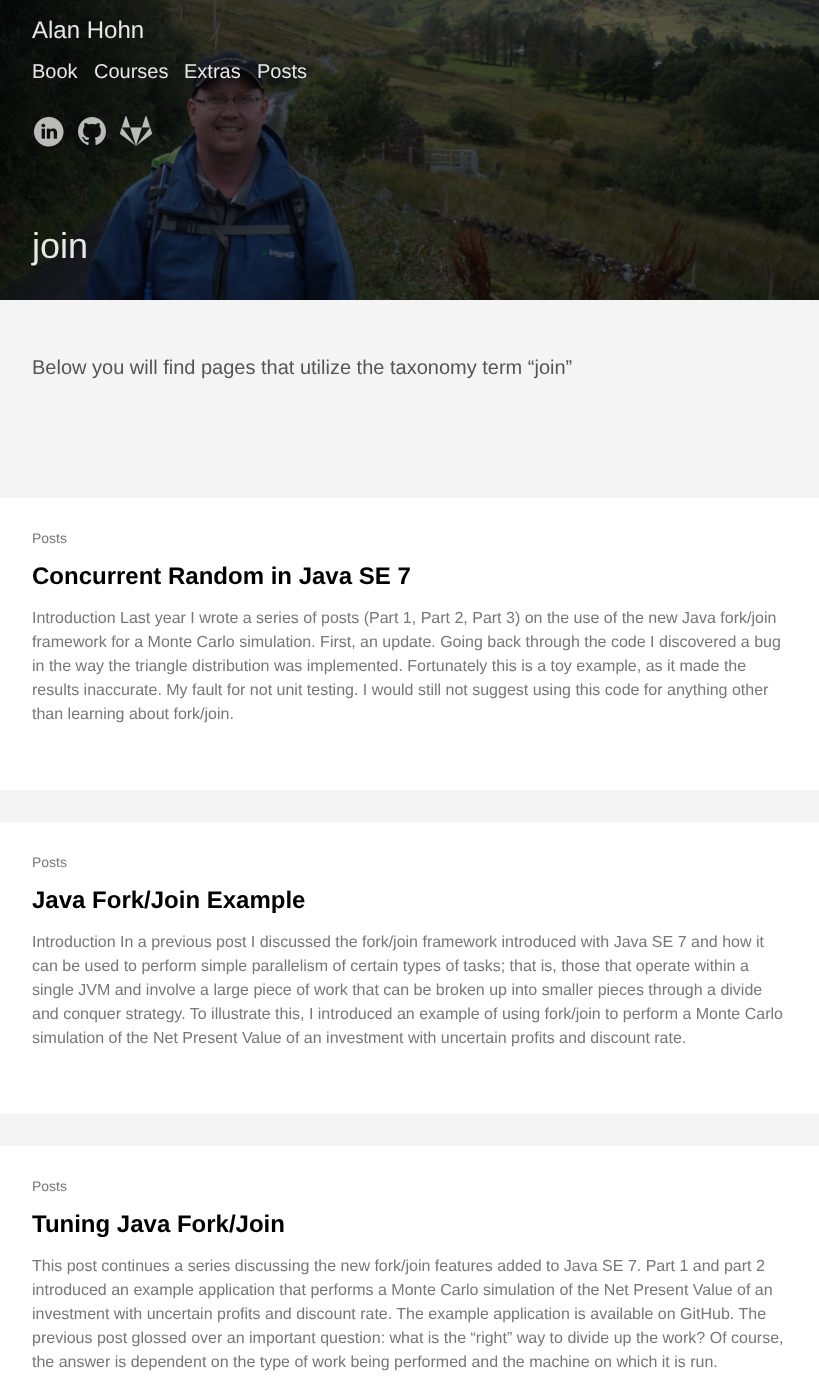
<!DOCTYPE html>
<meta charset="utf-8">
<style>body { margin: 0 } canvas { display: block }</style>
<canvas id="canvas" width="819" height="1389"></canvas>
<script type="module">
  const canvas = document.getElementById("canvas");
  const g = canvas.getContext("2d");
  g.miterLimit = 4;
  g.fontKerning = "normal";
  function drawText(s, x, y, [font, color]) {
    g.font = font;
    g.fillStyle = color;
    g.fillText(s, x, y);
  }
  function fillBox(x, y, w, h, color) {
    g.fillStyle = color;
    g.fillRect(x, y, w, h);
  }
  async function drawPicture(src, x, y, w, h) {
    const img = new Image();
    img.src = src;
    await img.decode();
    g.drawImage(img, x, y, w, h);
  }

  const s1 = ["24px Liberation Sans", "#E7E7E7"];
  const s2 = ["20px Liberation Sans", "#E7E7E7"];
  const s3 = ["36px Liberation Sans", "#E7E7E7"];
  const s4 = ["20px Liberation Sans", "#555555"];
  const s5 = ["14px Liberation Sans", "#777777"];
  const s6 = ["bold 24px Liberation Sans", "#000000"];
  const s7 = ["16px Liberation Sans", "#777777"];

  fillBox(0, 0, 819, 1389, "#F4F4F4");
  await drawPicture("pic1.png", 0, 0, 819, 300);
  drawText("Alan Hohn", 32, 38, s1);
  drawText("Book", 32, 78, s2);
  drawText("Courses", 94, 78, s2);
  drawText("Extras", 184, 78, s2);
  drawText("Posts", 257, 78, s2);
  await drawPicture("pic2.png", 34, 117, 30, 30);
  await drawPicture("pic3.png", 78, 117, 28, 28);
  await drawPicture("pic4.png", 120, 116, 32, 30);
  drawText("join", 32, 258, s3);
  drawText("Below you will find pages that utilize the taxonomy term “join”", 32, 374, s4);
  fillBox(0, 498, 819, 292, "#FFFFFF");
  drawText("Posts", 32, 543, s5);
  drawText("Concurrent Random in Java SE 7", 32, 584, s6);
  drawText("Introduction Last year I wrote a series of posts (Part 1, Part 2, Part 3) on the use of the new Java fork/join", 32, 623, s7);
  drawText("framework for a Monte Carlo simulation. First, an update. Going back through the code I discovered a bug", 32, 647, s7);
  drawText("in the way the triangle distribution was implemented. Fortunately this is a toy example, as it made the", 32, 671, s7);
  drawText("results inaccurate. My fault for not unit testing. I would still not suggest using this code for anything other", 32, 695, s7);
  drawText("than learning about fork/join.", 32, 719, s7);
  fillBox(0, 822, 819, 292, "#FFFFFF");
  drawText("Posts", 32, 867, s5);
  drawText("Java Fork/Join Example", 32, 908, s6);
  drawText("Introduction In a previous post I discussed the fork/join framework introduced with Java SE 7 and how it", 32, 947, s7);
  drawText("can be used to perform simple parallelism of certain types of tasks; that is, those that operate within a", 32, 971, s7);
  drawText("single JVM and involve a large piece of work that can be broken up into smaller pieces through a divide", 32, 995, s7);
  drawText("and conquer strategy. To illustrate this, I introduced an example of using fork/join to perform a Monte Carlo", 32, 1019, s7);
  drawText("simulation of the Net Present Value of an investment with uncertain profits and discount rate.", 32, 1043, s7);
  fillBox(0, 1146, 819, 243, "#FFFFFF");
  drawText("Posts", 32, 1191, s5);
  drawText("Tuning Java Fork/Join", 32, 1232, s6);
  drawText("This post continues a series discussing the new fork/join features added to Java SE 7. Part 1 and part 2", 32, 1271, s7);
  drawText("introduced an example application that performs a Monte Carlo simulation of the Net Present Value of an", 32, 1295, s7);
  drawText("investment with uncertain profits and discount rate. The example application is available on GitHub. The", 32, 1319, s7);
  drawText("previous post glossed over an important question: what is the “right” way to divide up the work? Of course,", 32, 1343, s7);
  drawText("the answer is dependent on the type of work being performed and the machine on which it is run.", 32, 1367, s7);
</script>
